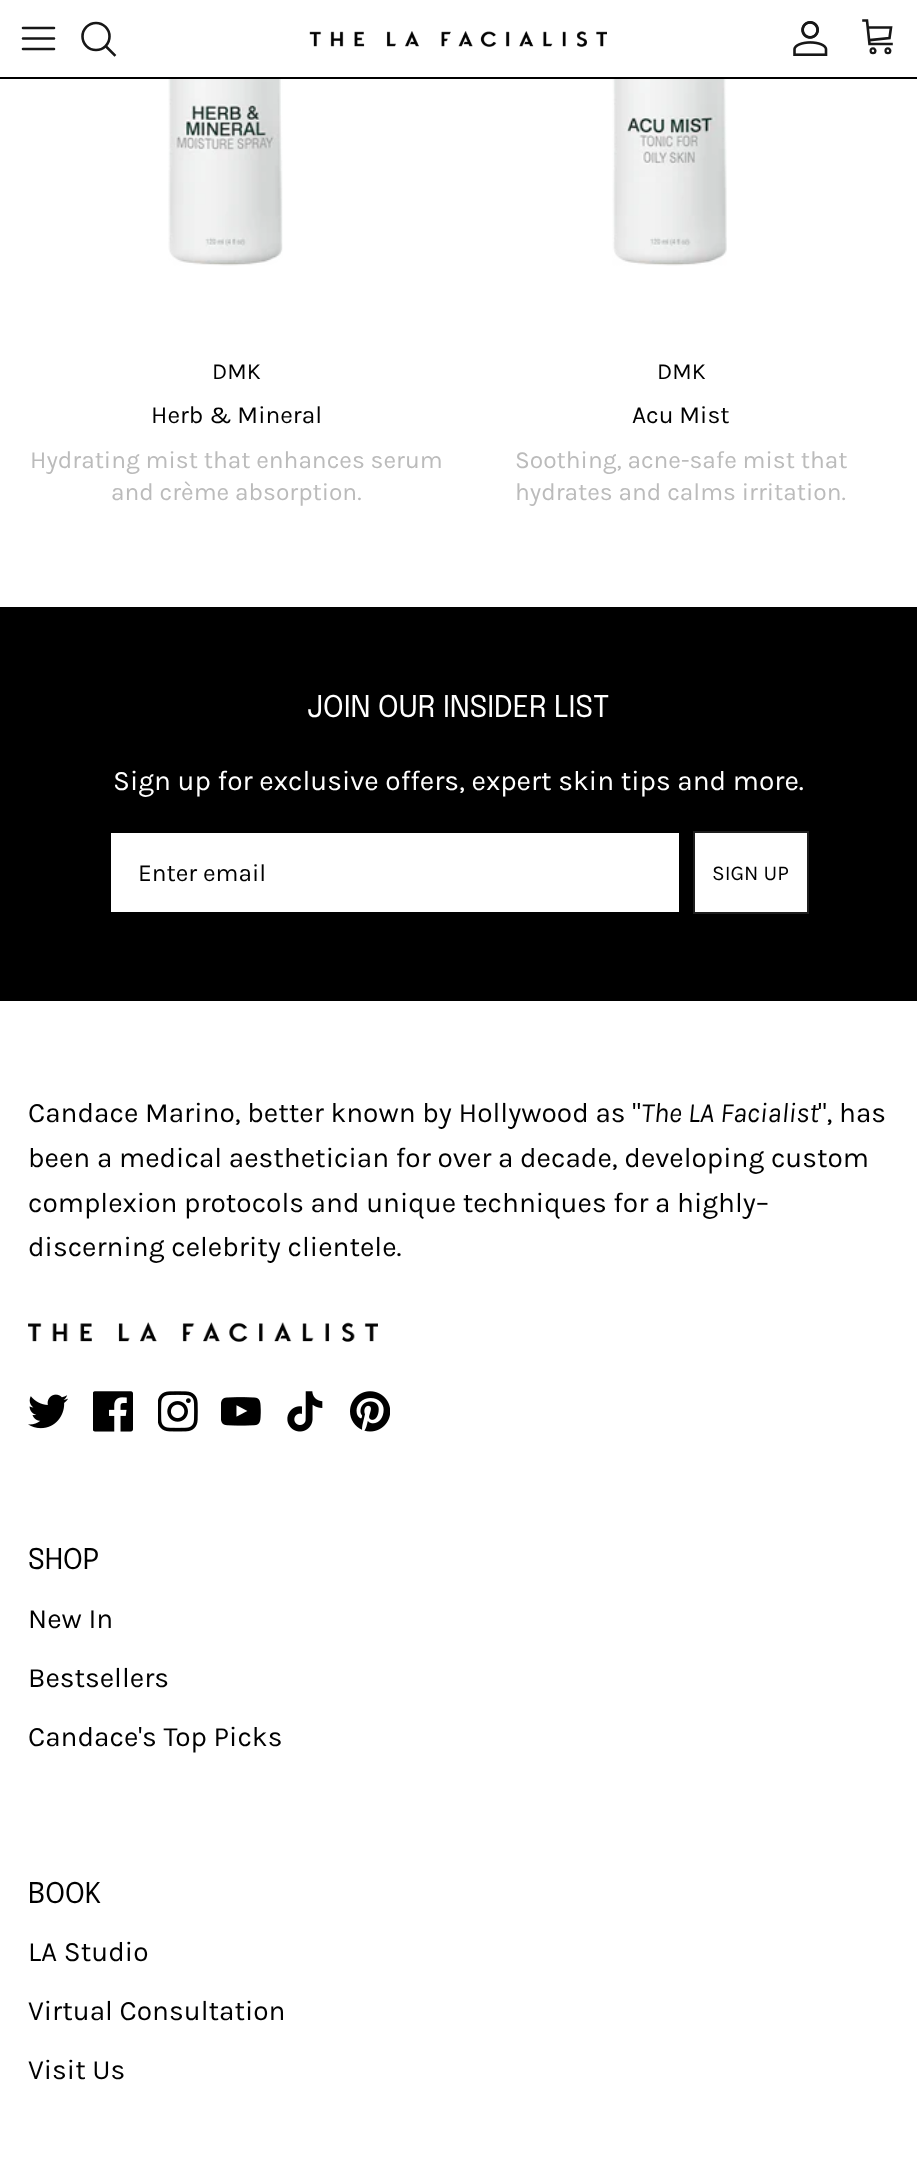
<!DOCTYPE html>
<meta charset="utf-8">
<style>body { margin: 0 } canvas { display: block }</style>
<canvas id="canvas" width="917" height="2158"></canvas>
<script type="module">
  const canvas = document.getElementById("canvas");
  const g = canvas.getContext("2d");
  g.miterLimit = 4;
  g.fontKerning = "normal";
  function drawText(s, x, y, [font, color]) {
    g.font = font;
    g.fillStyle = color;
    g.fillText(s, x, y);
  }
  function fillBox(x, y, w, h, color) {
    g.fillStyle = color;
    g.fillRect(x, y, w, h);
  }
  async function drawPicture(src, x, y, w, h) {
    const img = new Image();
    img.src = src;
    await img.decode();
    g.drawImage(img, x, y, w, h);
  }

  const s1 = ["23px Karla", "#000000"];
  const s2 = ["24.5px Karla", "#000000"];
  const s3 = ["24.5px Karla", "#BBBBBB"];
  const s4 = ["29.75px Epilogue", "#FFFFFF"];
  const s5 = ["28px Karla", "#FFFFFF"];
  const s6 = ["21px Karla", "#000000"];
  const s7 = ["28px Karla", "#000000"];
  const s8 = ["italic 28px Karla", "#000000"];
  const s9 = ["28.5px Epilogue", "#000000"];

  fillBox(0, 0, 917, 2158, "#FFFFFF");
  fillBox(0, 77, 917, 2, "#000000");
  g.beginPath();
  g.moveTo(23, 38.5);
  g.lineTo(54, 38.5);
  g.moveTo(23, 28);
  g.lineTo(54, 28);
  g.moveTo(23, 49);
  g.lineTo(54, 49);
  g.strokeStyle = "#171717";
  g.lineWidth = 2.6;
  g.lineCap = "round";
  g.lineJoin = "round";
  g.stroke();
  g.beginPath();
  g.arc(96, 36.5, 13.5, 0, Math.PI * 2);
  g.stroke();
  g.beginPath();
  g.moveTo(106.5, 47);
  g.lineTo(114.5, 55);
  g.lineCap = "square";
  g.lineJoin = "miter";
  g.stroke();
  await drawPicture("pic1.png", 309, 31, 298, 16);
  await drawPicture("pic2.png", 793, 21, 35, 35);
  g.beginPath();
  g.moveTo(863.5, 20.5);
  g.lineTo(867, 20.5);
  g.lineTo(869.5, 44);
  g.lineTo(891.5, 44);
  g.moveTo(868.5, 27.5);
  g.lineTo(891, 27.5);
  g.lineTo(889.5, 38);
  g.lineTo(871, 40);
  g.stroke();
  g.beginPath();
  g.arc(873, 50.8, 2.4, 0, Math.PI * 2);
  g.lineWidth = 2.2;
  g.stroke();
  g.beginPath();
  g.arc(887.9, 50.8, 2.4, 0, Math.PI * 2);
  g.stroke();
  await drawPicture("pic3.png", 168, 79, 115, 187);
  drawText("DMK", 212, 379, s1);
  drawText("Herb & Mineral", 151, 423, s2);
  drawText("Hydrating mist that enhances serum", 30, 468, s3);
  drawText("and crème absorption.", 111, 500, s3);
  await drawPicture("pic4.png", 612, 79, 115, 187);
  drawText("DMK", 657, 379, s1);
  drawText("Acu Mist", 632, 423, s2);
  drawText("Soothing, acne-safe mist that", 515, 468, s3);
  drawText("hydrates and calms irritation.", 515, 500, s3);
  fillBox(0, 607, 917, 394, "#000000");
  drawText("JOIN OUR INSIDER LIST", 307, 717, s4);
  drawText("Sign up for exclusive offers, expert skin tips and more.", 113, 790, s5);
  fillBox(111, 833, 568, 79, "#FFFFFF");
  drawText("Enter email", 138, 881, s2);
  g.fillStyle = "#FFFFFF";
  g.beginPath();
  g.rect(694, 832, 114, 81);
  g.fill();
  g.strokeStyle = "#1D1D1D";
  g.lineWidth = 2;
  g.stroke();
  drawText("SIGN UP", 712, 880, s6);
  drawText("Candace Marino, better known by Hollywood as \"", 28, 1122, s7);
  drawText("The LA Facialist", 641, 1122, s8);
  drawText("\", has", 818, 1122, s7);
  drawText("been a medical aesthetician for over a decade, developing custom", 28, 1167, s7);
  drawText("complexion protocols and unique techniques for a highly–", 28, 1212, s7);
  drawText("discerning celebrity clientele.", 28, 1256, s7);
  await drawPicture("pic5.png", 28, 1322, 350, 20);
  await drawPicture("pic6.png", 28, 1394, 40, 35);
  await drawPicture("pic7.png", 93, 1391, 40, 41);
  await drawPicture("pic8.png", 158, 1391, 40, 41);
  await drawPicture("pic9.png", 221, 1397, 40, 29);
  await drawPicture("pic10.png", 287, 1391, 36, 41);
  await drawPicture("pic11.png", 350, 1391, 40, 41);
  drawText("SHOP", 28, 1569, s9);
  drawText("New In", 28, 1628, s7);
  drawText("Bestsellers", 28, 1687, s7);
  drawText("Candace's Top Picks", 28, 1746, s7);
  drawText("BOOK", 28, 1903, s9);
  drawText("LA Studio", 28, 1961, s7);
  drawText("Virtual Consultation", 28, 2020, s7);
  drawText("Visit Us", 28, 2079, s7);
</script>
